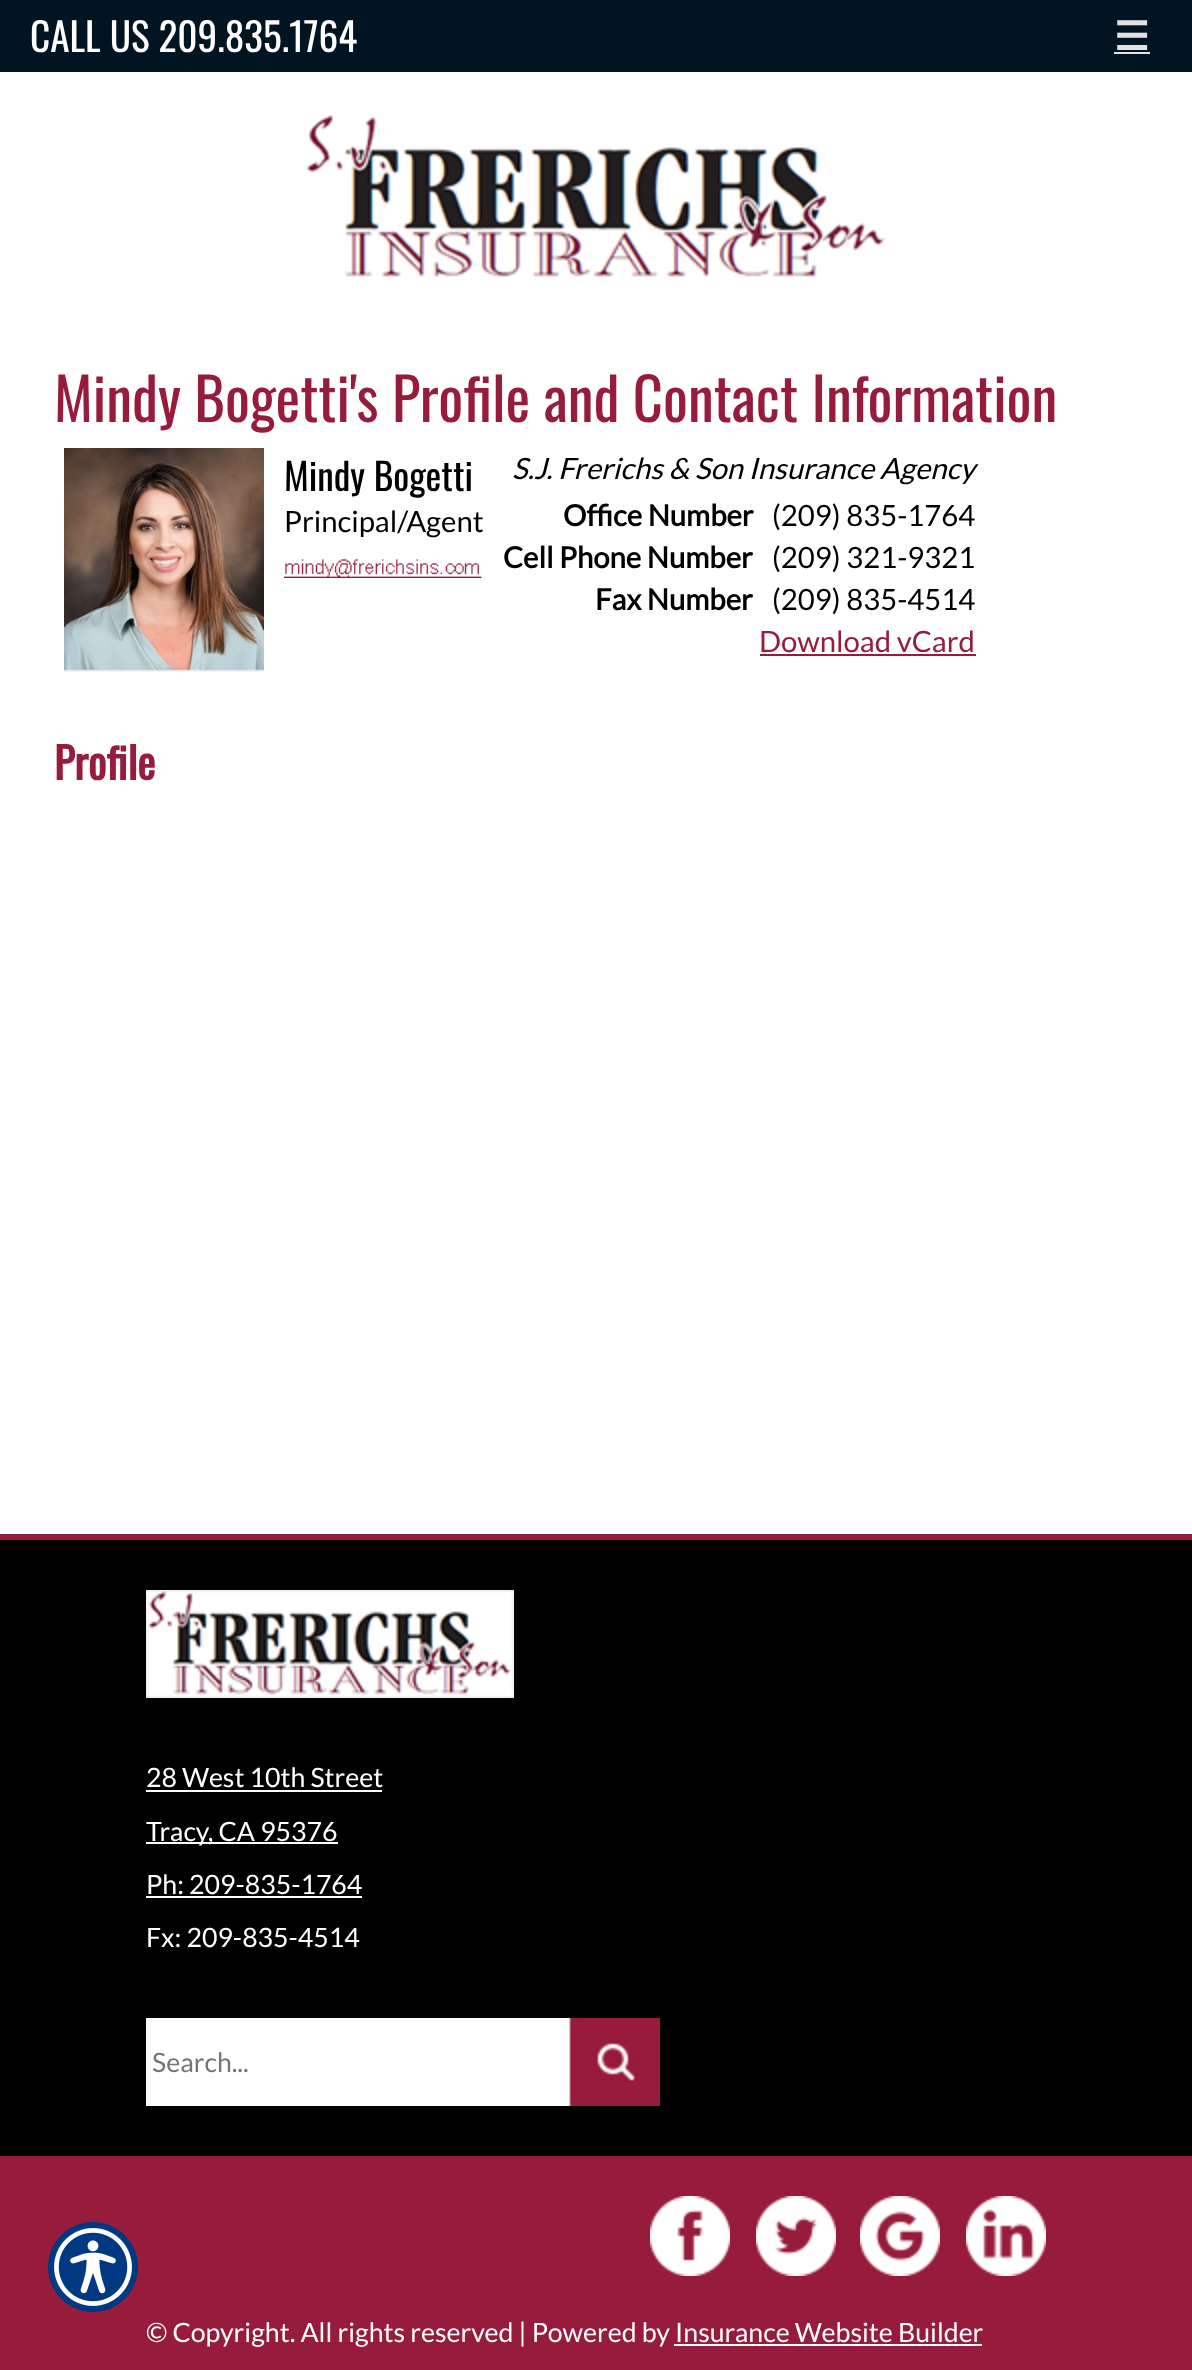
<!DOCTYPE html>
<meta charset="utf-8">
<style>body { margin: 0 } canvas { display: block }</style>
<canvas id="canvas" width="1192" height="2370"></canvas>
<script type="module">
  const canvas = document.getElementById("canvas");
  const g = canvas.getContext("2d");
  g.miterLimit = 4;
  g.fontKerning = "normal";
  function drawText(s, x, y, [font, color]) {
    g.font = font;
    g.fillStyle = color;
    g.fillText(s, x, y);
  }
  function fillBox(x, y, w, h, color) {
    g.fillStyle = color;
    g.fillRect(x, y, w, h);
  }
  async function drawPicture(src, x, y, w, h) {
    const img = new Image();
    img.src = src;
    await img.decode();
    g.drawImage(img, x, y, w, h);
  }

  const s1 = ["39.25px Oswald", "#FFFFFF"];
  const s2 = ["bold 39.25px DejaVu Sans", "#E2E2E2"];
  const s3 = ["58.7px Oswald", "#971B3A"];
  const s4 = ["37.5px Oswald", "#000000"];
  const s5 = ["29.3px Lato", "#000000"];
  const s6 = ["italic 29.3px Lato", "#000000"];
  const s7 = ["bold 29.3px Lato", "#000000"];
  const s8 = ["29.3px Lato", "#971B3A"];
  const s9 = ["bold 43px Oswald", "#971B3A"];
  const s10 = ["26.7px Lato", "#FFFFFF"];
  const s11 = ["26.7px Lato", "#757575"];

  fillBox(0, 0, 1192, 2370, "#FFFFFF");
  fillBox(0, 0, 1192, 72, "#011422");
  drawText("CALL US 209.835.1764", 30, 52, s1);
  drawText("☰", 1114, 50, s2);
  fillBox(1114, 52, 36, 2, "#E2E2E2");
  await drawPicture("pic1.png", 306, 115, 580, 163);
  drawText("Mindy Bogetti's Profile and Contact Information", 54, 422, s3);
  await drawPicture("pic2.png", 64, 448, 200, 224);
  drawText("Mindy Bogetti", 284, 491, s4);
  drawText("Principal/Agent", 284, 532, s5);
  await drawPicture("pic3.png", 284, 559, 198, 19);
  drawText("S.J. Frerichs & Son Insurance Agency", 512, 479, s6);
  drawText("Office Number", 563, 526, s7);
  drawText("(209) 835-1764", 772, 526, s5);
  drawText("Cell Phone Number", 503, 568, s7);
  drawText("(209) 321-9321", 772, 568, s5);
  drawText("Fax Number", 595, 610, s7);
  drawText("(209) 835-4514", 772, 610, s5);
  drawText("Download vCard", 759, 652, s8);
  fillBox(760, 654, 216, 2, "#971B3A");
  drawText("Profile", 54, 780, s9);
  fillBox(0, 1534, 1192, 6, "#971B3A");
  fillBox(0, 1540, 1192, 616, "#000000");
  await drawPicture("pic4.png", 146, 1590, 368, 108);
  drawText("28 West 10th Street", 146, 1787, s10);
  fillBox(146, 1790, 236, 2, "#FFFFFF");
  fillBox(146, 1842, 192, 2, "#FFFFFF");
  drawText("Tracy, CA 95376", 146, 1841, s10);
  drawText("Ph: 209-835-1764", 146, 1894, s10);
  fillBox(146, 1896, 216, 2, "#FFFFFF");
  drawText("Fx: 209-835-4514", 146, 1947, s10);
  await drawPicture("pic5.png", 146, 2018, 514, 88);
  drawText("Search...", 152, 2072, s11);
  fillBox(0, 2156, 1192, 214, "#971B3A");
  await drawPicture("pic6.png", 650, 2196, 80, 80);
  await drawPicture("pic7.png", 756, 2196, 80, 80);
  await drawPicture("pic8.png", 860, 2196, 80, 80);
  await drawPicture("pic9.png", 966, 2196, 80, 80);
  drawText("© Copyright. All rights reserved | Powered by Insurance Website Builder", 146, 2342, s10);
  fillBox(674, 2344, 308, 2, "#FFFFFF");
  await drawPicture("pic10.png", 48, 2222, 90, 90);
</script>
